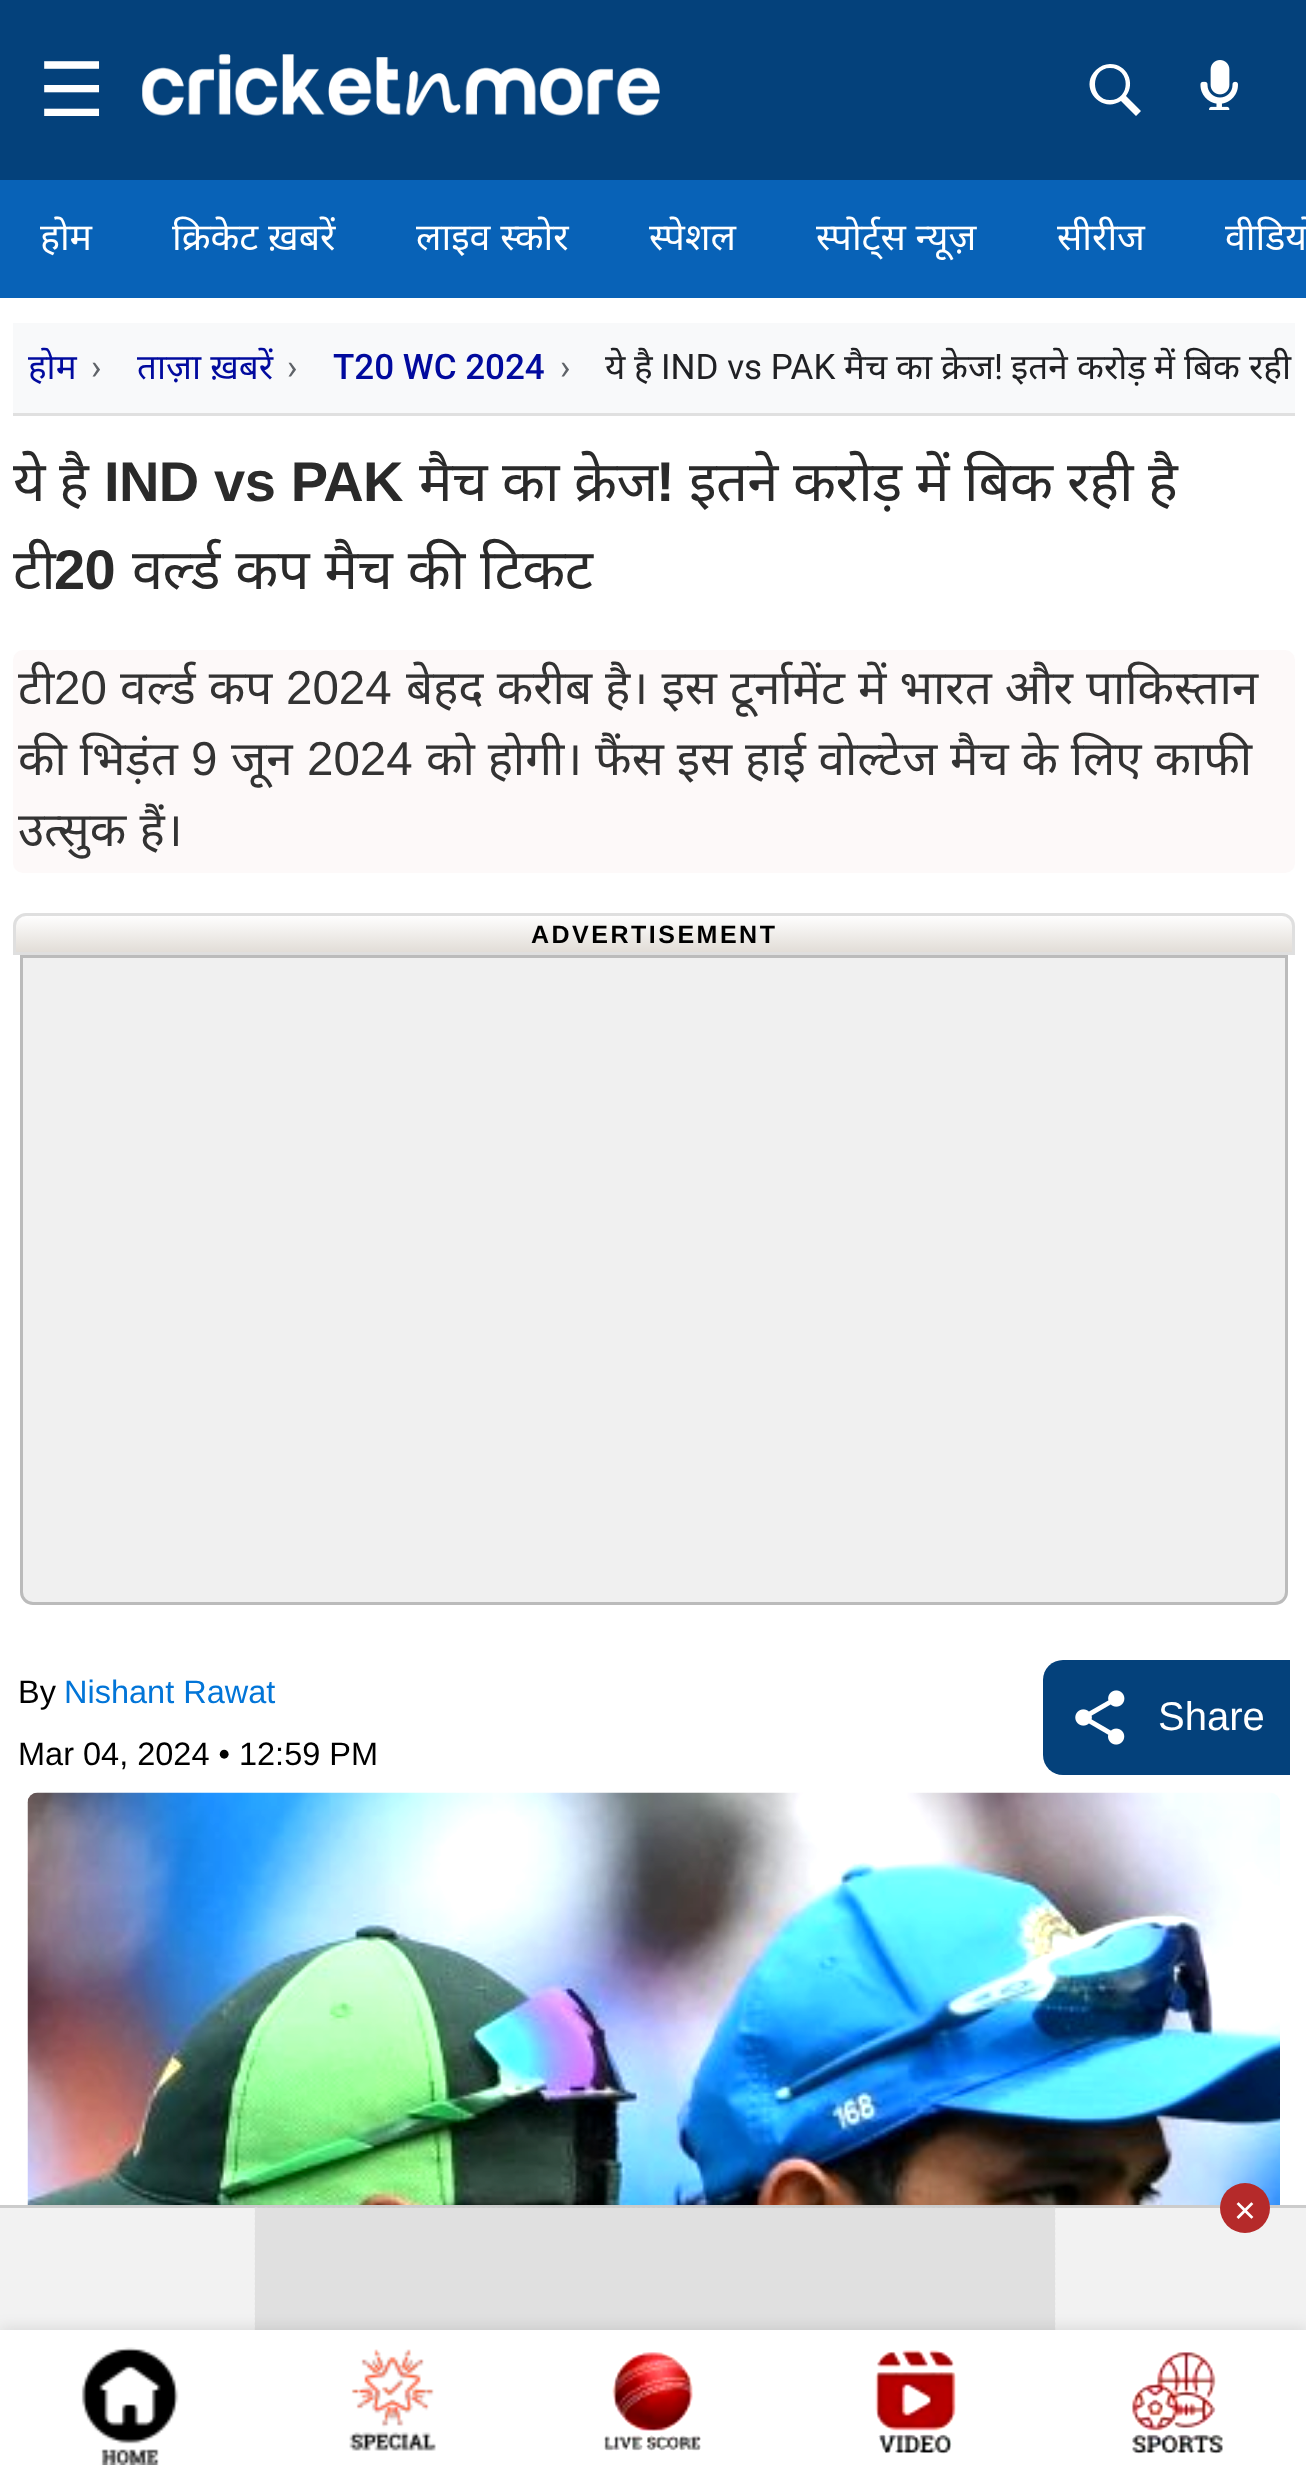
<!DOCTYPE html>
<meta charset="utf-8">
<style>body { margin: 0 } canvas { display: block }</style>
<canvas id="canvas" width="1306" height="2480"></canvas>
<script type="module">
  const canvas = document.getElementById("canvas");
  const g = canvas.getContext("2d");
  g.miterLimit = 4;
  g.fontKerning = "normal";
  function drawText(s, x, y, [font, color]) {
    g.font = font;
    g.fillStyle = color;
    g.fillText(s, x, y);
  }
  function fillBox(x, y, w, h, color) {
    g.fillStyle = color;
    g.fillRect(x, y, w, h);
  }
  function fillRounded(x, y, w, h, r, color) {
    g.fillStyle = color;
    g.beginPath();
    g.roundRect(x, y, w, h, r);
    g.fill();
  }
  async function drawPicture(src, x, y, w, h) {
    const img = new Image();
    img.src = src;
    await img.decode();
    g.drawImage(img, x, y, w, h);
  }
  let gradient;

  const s1 = ["75px DejaVu Sans", "#FFFFFF"];
  const s2 = ["37.5px Noto Sans", "#FFFFFF"];
  const s3 = ["35px Noto Sans", "#010A9E"];
  const s4 = ["35px Roboto", "#5F6368"];
  const s5 = ["500 35px Roboto", "#010A9E"];
  const s6 = ["35px Noto Sans", "#202124"];
  const s7 = ["35px Roboto", "#202124"];
  const s8 = ["56px Noto Sans", "#2A2A2A"];
  const s9 = ["bold 56px Liberation Sans", "#2A2A2A"];
  const s10 = ["47.5px Noto Sans", "#333333"];
  const s11 = ["47.5px Liberation Sans", "#333333"];
  const s12 = ["bold 25px Liberation Sans", "#000000"];
  const s13 = ["32.5px Liberation Sans", "#000000"];
  const s14 = ["32.5px Liberation Sans", "#0275D8"];
  const s15 = ["40px Liberation Sans", "#FFFFFF"];
  const s16 = ["37.5px Liberation Sans", "#FFFFFF"];

  fillBox(0, 0, 1306, 2480, "#FFFFFF");
  fillBox(0, 0, 1306, 180, "#04417B");
  drawText("☰", 38, 116, s1);
  await drawPicture("pic1.png", 142, 54, 518, 62);
  g.beginPath();
  g.moveTo(1110, 64);
  g.bezierCurveTo(1105, 64, 1100, 66, 1096, 70);
  g.bezierCurveTo(1078, 87, 1101, 114, 1121, 101);
  g.lineTo(1136, 116);
  g.lineTo(1141, 111);
  g.lineTo(1126, 96);
  g.bezierCurveTo(1136, 83, 1127, 64, 1110, 64);
  g.closePath();
  g.moveTo(1110, 68);
  g.bezierCurveTo(1131, 68, 1131, 100, 1110, 100);
  g.bezierCurveTo(1090, 100, 1090, 68, 1110, 68);
  g.closePath();
  g.fill();
  await drawPicture("pic2.png", 1200, 60, 38, 50);
  fillBox(0, 180, 1306, 118, "#0862B7");
  drawText("होम", 40, 250, s2);
  drawText("क्रिकेट ख़बरें", 172, 250, s2);
  drawText("लाइव स्कोर", 416, 250, s2);
  drawText("स्पेशल", 649, 250, s2);
  drawText("स्पोर्ट्स न्यूज़", 816, 250, s2);
  drawText("सीरीज", 1057, 250, s2);
  drawText("वीडियो", 1225, 250, s2);
  fillBox(13, 323, 1282, 90, "#F8F9FA");
  fillBox(13, 413, 1282, 3, "#E0E0E0");
  drawText("होम", 28, 379, s3);
  drawText("›", 91, 379, s4);
  drawText("ताज़ा ख़बरें", 137, 379, s3);
  drawText("›", 287, 379, s4);
  drawText("T20 WC 2024", 333, 379, s5);
  drawText("›", 560, 379, s4);
  drawText("ये", 605, 379, s6);
  drawText("है", 634, 379, s6);
  drawText("IND vs PAK", 661, 379, s7);
  drawText("मैच", 844, 379, s6);
  drawText("का", 896, 379, s6);
  drawText("क्रेज", 941, 379, s6);
  drawText("!", 994, 379, s7);
  drawText("इतने", 1011, 379, s6);
  drawText("करोड़", 1077, 379, s6);
  drawText("में", 1154, 379, s6);
  drawText("बिक", 1184, 379, s6);
  drawText("रही", 1249, 379, s6);
  g.save();
  g.beginPath();
  g.roundRect(13, 440, 1282, 1190, [8, 8, 0, 0]);
  g.clip();
  g.letterSpacing = "-0.6px";
  drawText("ये", 13, 501, s8);
  g.restore();
  g.letterSpacing = "-0.6px";
  drawText("है", 59, 501, s8);
  g.wordSpacing = "0.5px";
  drawText("IND vs PAK", 104, 501, s9);
  g.wordSpacing = "0px";
  drawText("मैच", 419, 501, s8);
  drawText("का", 502, 501, s8);
  drawText("क्रेज", 574, 501, s8);
  drawText("!", 656, 501, s9);
  drawText("इतने", 689, 501, s8);
  drawText("करोड़", 793, 501, s8);
  drawText("में", 916, 501, s8);
  drawText("बिक", 964, 501, s8);
  drawText("रही", 1067, 501, s8);
  drawText("है", 1148, 501, s8);
  g.save();
  g.beginPath();
  g.roundRect(13, 440, 1282, 1190, [8, 8, 0, 0]);
  g.clip();
  drawText("टी", 13, 589, s8);
  g.restore();
  drawText("20", 54, 589, s9);
  g.wordSpacing = "1.5px";
  drawText("वर्ल्ड कप मैच की टिकट", 132, 589, s8);
  fillRounded(13, 650, 1282, 223, 10, "#FDF9F9");
  g.save();
  g.beginPath();
  g.rect(18, 655, 1272, 213);
  g.clip();
  g.letterSpacing = "0px";
  g.wordSpacing = "0px";
  drawText("टी", 18, 704, s10);
  g.restore();
  g.letterSpacing = "0px";
  g.wordSpacing = "0px";
  drawText("20", 54, 704, s11);
  g.wordSpacing = "0.75px";
  drawText("वर्ल्ड कप", 120, 704, s10);
  g.wordSpacing = "0px";
  drawText("2024", 286, 704, s11);
  g.wordSpacing = "0.75px";
  drawText("बेहद करीब है। इस टूर्नामेंट में भारत और पाकिस्तान", 406, 704, s10);
  g.save();
  g.beginPath();
  g.rect(18, 655, 1272, 213);
  g.clip();
  g.wordSpacing = "0.5px";
  drawText("की भिड़ंत", 18, 775, s10);
  g.restore();
  g.wordSpacing = "0px";
  drawText("9", 191, 775, s11);
  drawText("जून", 231, 775, s10);
  drawText("2024", 307, 775, s11);
  g.wordSpacing = "0.5px";
  drawText("को होगी। फैंस इस हाई वोल्टेज मैच के लिए काफी", 426, 775, s10);
  g.save();
  g.beginPath();
  g.rect(18, 655, 1272, 213);
  g.clip();
  g.wordSpacing = "1px";
  drawText("उत्सुक हैं।", 18, 846, s10);
  g.restore();
  g.save();
  g.beginPath();
  g.roundRect(13, 913, 1282, 42, [13, 13, 0, 0]);
  g.clip();
  gradient = g.createLinearGradient(654, 915, 654, 953);
  gradient.addColorStop(0, "#FFFFFF");
  gradient.addColorStop(1, "#E1DCD6");
  g.fillStyle = gradient;
  g.fillRect(13, 915, 1282, 37);
  g.restore();
  g.beginPath();
  g.roundRect(14.5, 914.5, 1279, 39, [11.5, 11.5, 0, 0]);
  g.strokeStyle = "#DFDFDF";
  g.lineWidth = 3;
  g.stroke();
  g.letterSpacing = "2.5px";
  g.wordSpacing = "0px";
  drawText("ADVERTISEMENT", 531, 943, s12);
  g.fillStyle = "#F0F0F0";
  g.beginPath();
  g.roundRect(21.5, 956.5, 1265, 647, [0, 0, 11.5, 11.5]);
  g.fill();
  g.strokeStyle = "#BBBBBB";
  g.stroke();
  g.letterSpacing = "0px";
  drawText("By", 18, 1703, s13);
  drawText("Nishant Rawat", 64, 1703, s14);
  drawText("Mar 04, 2024 • 12:59 PM", 18, 1765, s13);
  g.fillStyle = "#04417B";
  g.beginPath();
  g.roundRect(1043, 1660, 247, 115, [20, 0, 0, 20]);
  g.fill();
  await drawPicture("pic3.png", 1075, 1690, 50, 55);
  drawText("Share", 1158, 1730, s15);
  await drawPicture("pic4.png", 27, 1792, 1253, 413);
  fillBox(0, 2208, 1306, 122, "#F2F2F2");
  fillBox(0, 2205, 1306, 3, "#CCCCCC");
  fillBox(255, 2208, 800, 122, "#E0E0E0");
  g.beginPath();
  g.moveTo(255, 2209);
  g.lineTo(1055, 2209);
  g.strokeStyle = "#E0E0E0";
  g.lineWidth = 2.5;
  g.setLineDash([2.5, 2.5]);
  g.stroke();
  g.beginPath();
  g.moveTo(1054, 2207.5);
  g.lineTo(1054, 2332.5);
  g.stroke();
  g.beginPath();
  g.moveTo(256, 2207.5);
  g.lineTo(256, 2332.5);
  g.stroke();
  g.fillStyle = "#B52A2A";
  g.beginPath();
  g.arc(1245, 2208, 25, 0, Math.PI * 2);
  g.fill();
  drawText("×", 1234, 2223, s16);
  g.fillStyle = "rgba(0, 0, 0, 0.1)";
  g.filter = "blur(7.5px)";
  g.beginPath();
  g.rect(0, 2328, 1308, 150);
  g.fill();
  g.filter = "none";
  fillBox(0, 2330, 1306, 150, "#FFFFFF");
  await drawPicture("pic5.png", 81, 2347, 98, 118);
  await drawPicture("pic6.png", 349, 2349, 87, 102);
  await drawPicture("pic7.png", 604, 2352, 97, 99);
  await drawPicture("pic8.png", 875, 2350, 81, 104);
  await drawPicture("pic9.png", 1132, 2352, 91, 102);
</script>
